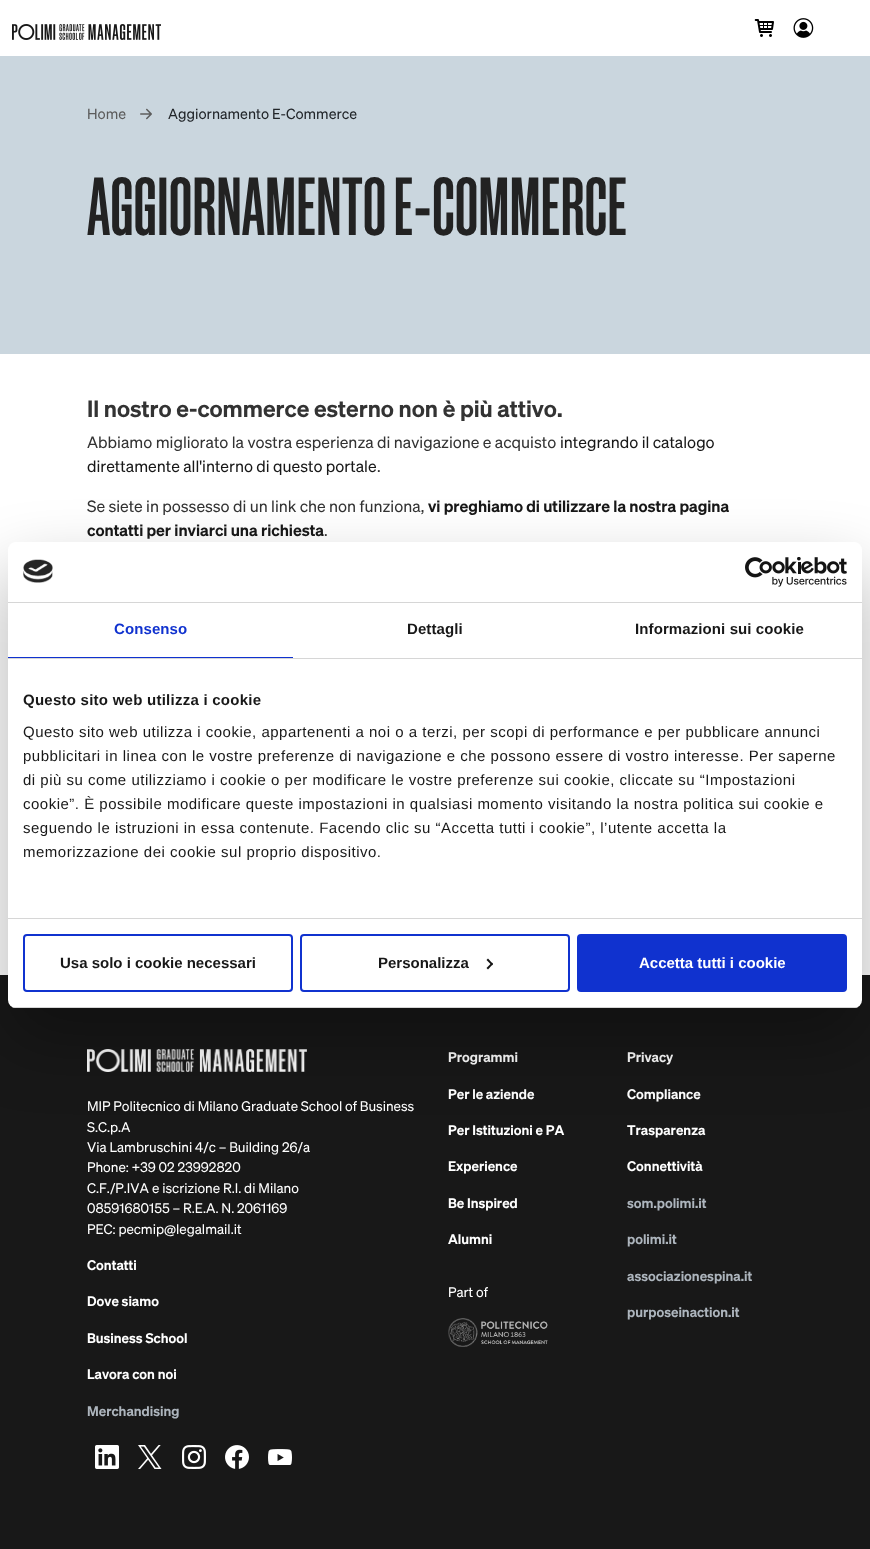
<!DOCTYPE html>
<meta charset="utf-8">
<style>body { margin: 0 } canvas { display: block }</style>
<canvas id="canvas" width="870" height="1549"></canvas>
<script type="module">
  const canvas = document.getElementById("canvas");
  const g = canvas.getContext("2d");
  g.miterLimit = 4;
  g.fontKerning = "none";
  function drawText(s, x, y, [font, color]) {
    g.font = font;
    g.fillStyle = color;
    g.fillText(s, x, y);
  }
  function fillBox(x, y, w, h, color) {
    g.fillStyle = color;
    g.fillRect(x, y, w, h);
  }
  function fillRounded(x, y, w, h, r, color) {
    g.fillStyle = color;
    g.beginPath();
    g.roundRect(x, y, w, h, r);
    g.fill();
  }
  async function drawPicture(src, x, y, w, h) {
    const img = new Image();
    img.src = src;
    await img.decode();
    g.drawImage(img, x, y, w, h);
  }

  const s1 = ["14.4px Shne", "#5C5C5C"];
  const s2 = ["14.4px Shne", "#212529"];
  const s3 = ["500 80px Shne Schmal", "#222222"];
  const s4 = ["600 23px Shne", "#333333"];
  const s5 = ["16px Shne", "#333333"];
  const s6 = ["16px Shne", "#181818"];
  const s7 = ["600 16px Shne", "#181818"];
  const s8 = ["13.6px Shne", "#FFFFFF"];
  const s9 = ["600 13.6px Shne", "#FFFFFF"];
  const s10 = ["600 13.6px Shne", "#ADB5BD"];
  const s11 = ["bold 15px Liberation Sans", "#1032CF"];
  const s12 = ["bold 15px Liberation Sans", "#181818"];
  const s13 = ["15px Liberation Sans", "#181818"];
  const s14 = ["bold 15px Liberation Sans", "#FFFFFF"];

  fillBox(0, 0, 870, 1549, "#FFFFFF");
  await drawPicture("pic1.png", 12, 24, 149, 16);
  await drawPicture("pic2.png", 754, 19, 20, 18);
  await drawPicture("pic3.png", 793, 18, 21, 20);
  fillBox(0, 56, 870, 298, "#CAD6DE");
  drawText("Home", 87, 119, s1);
  await drawPicture("pic4.png", 140, 108, 12, 12);
  drawText("Aggiornamento E-Commerce", 168, 119, s2);
  drawText("AGGIORNAMENTO E-COMMERCE", 87, 235, s3);
  drawText("Il nostro e-commerce esterno non è più attivo.", 87, 417, s4);
  drawText("Abbiamo migliorato la vostra esperienza di navigazione e acquisto", 87, 448, s5);
  drawText("integrando il catalogo", 560, 448, s6);
  drawText("direttamente all'interno di questo portale", 87, 472, s6);
  drawText(".", 377, 472, s5);
  drawText("Se siete in possesso di un link che non funziona,", 87, 512, s5);
  drawText("vi preghiamo di utilizzare la nostra pagina", 428, 512, s7);
  drawText("contatti per inviarci una richiesta", 87, 536, s7);
  drawText(".", 324, 536, s5);
  fillBox(0, 975, 870, 574, "#181818");
  await drawPicture("pic5.png", 87, 1049, 220, 23);
  drawText("MIP Politecnico di Milano Graduate School of Business", 87, 1111, s8);
  drawText("S.C.p.A", 87, 1132, s8);
  drawText("Via Lambruschini 4/c – Building 26/a", 87, 1152, s8);
  drawText("Phone: +39 02 23992820", 87, 1172, s8);
  drawText("C.F./P.IVA", 87, 1193, s8);
  drawText("e iscrizione R.I. di Milano", 152, 1193, s8);
  drawText("08591680155 – R.E.A. N. 2061169", 87, 1213, s8);
  drawText("PEC: pecmip@legalmail.it", 87, 1234, s8);
  drawText("Contatti", 87, 1270, s9);
  drawText("Dove siamo", 87, 1306, s9);
  drawText("Business School", 87, 1343, s9);
  drawText("Lavora con noi", 87, 1379, s9);
  drawText("Merchandising", 87, 1416, s10);
  await drawPicture("pic6.png", 95, 1445, 24, 24);
  await drawPicture("pic7.png", 138, 1445, 24, 24);
  await drawPicture("pic8.png", 182, 1445, 24, 24);
  await drawPicture("pic9.png", 225, 1445, 24, 24);
  await drawPicture("pic10.png", 268, 1449, 24, 16);
  drawText("Programmi", 448, 1062, s9);
  drawText("Per le aziende", 448, 1099, s9);
  drawText("Per Istituzioni e PA", 448, 1135, s9);
  drawText("Experience", 448, 1171, s9);
  drawText("Be Inspired", 448, 1208, s9);
  drawText("Alumni", 448, 1244, s9);
  drawText("Part of", 448, 1297, s8);
  await drawPicture("pic11.png", 448, 1318, 100, 29);
  drawText("Privacy", 627, 1062, s9);
  drawText("Compliance", 627, 1099, s9);
  drawText("Trasparenza", 627, 1135, s9);
  drawText("Connettività", 627, 1171, s9);
  drawText("som.polimi.it", 627, 1208, s10);
  drawText("polimi.it", 627, 1244, s10);
  drawText("associazionespina.it", 627, 1281, s10);
  drawText("purposeinaction.it", 627, 1317, s10);
  g.fillStyle = "rgba(0, 0, 0, 0.3)";
  g.filter = "blur(34px)";
  g.beginPath();
  g.roundRect(8, 574, 854, 466, 8);
  g.fill();
  g.filter = "none";
  fillRounded(8, 542, 854, 466, 8, "#FFFFFF");
  fillBox(8, 602, 854, 1, "#D6D6D6");
  await drawPicture("pic12.png", 23, 559, 30, 24);
  await drawPicture("pic13.png", 745, 557, 102, 30);
  fillBox(8, 658, 854, 1, "#D6D6D6");
  fillBox(8, 657, 285, 1, "#1032CF");
  g.letterSpacing = "0.1px";
  drawText("Consenso", 114, 634, s11);
  drawText("Dettagli", 407, 634, s12);
  drawText("Informazioni sui cookie", 635, 634, s12);
  fillBox(8, 918, 854, 1, "#D6D6D6");
  g.letterSpacing = "0.25px";
  drawText("Questo sito web utilizza i cookie", 23, 705, s12);
  g.letterSpacing = "0.5px";
  drawText("Questo sito web utilizza i cookie, appartenenti a noi o a terzi, per scopi di performance e per pubblicare annunci", 23, 737, s13);
  drawText("pubblicitari in linea con le vostre preferenze di navigazione e che possono essere di vostro interesse. Per saperne", 23, 761, s13);
  drawText("di più su come utilizziamo i cookie o per modificare le vostre preferenze sui cookie, cliccate su “Impostazioni", 23, 785, s13);
  drawText("cookie”. È possibile modificare queste impostazioni in qualsiasi momento visitando la nostra politica sui cookie e", 23, 809, s13);
  drawText("seguendo le istruzioni in essa contenute. Facendo clic su “Accetta tutti i cookie”, l’utente accetta la", 23, 833, s13);
  drawText("memorizzazione dei cookie sul proprio dispositivo.", 23, 857, s13);
  g.save();
  g.beginPath();
  g.roundRect(8, 542, 854, 466, 8);
  g.clip();
  fillBox(8, 1007, 854, 1, "#D6D6D6");
  g.restore();
  g.beginPath();
  g.roundRect(24, 935, 268, 56, 3);
  g.strokeStyle = "#1032CF";
  g.lineWidth = 2;
  g.stroke();
  g.letterSpacing = "0px";
  drawText("Usa solo i cookie necessari", 60, 968, s12);
  g.beginPath();
  g.roundRect(301, 935, 268, 56, 3);
  g.stroke();
  drawText("Personalizza", 378, 968, s12);
  g.fillStyle = "#141414";
  g.beginPath();
  g.moveTo(488, 958.5);
  g.lineTo(493, 964);
  g.lineTo(492, 965.5);
  g.lineTo(486.5, 960);
  g.closePath();
  g.fill();
  g.beginPath();
  g.moveTo(492, 962.5);
  g.lineTo(493, 964);
  g.lineTo(488, 969.5);
  g.lineTo(486.5, 968);
  g.closePath();
  g.fill();
  g.fillStyle = "#1032CF";
  g.beginPath();
  g.roundRect(578, 935, 268, 56, 3);
  g.fill();
  g.stroke();
  drawText("Accetta tutti i cookie", 639, 968, s14);
</script>
